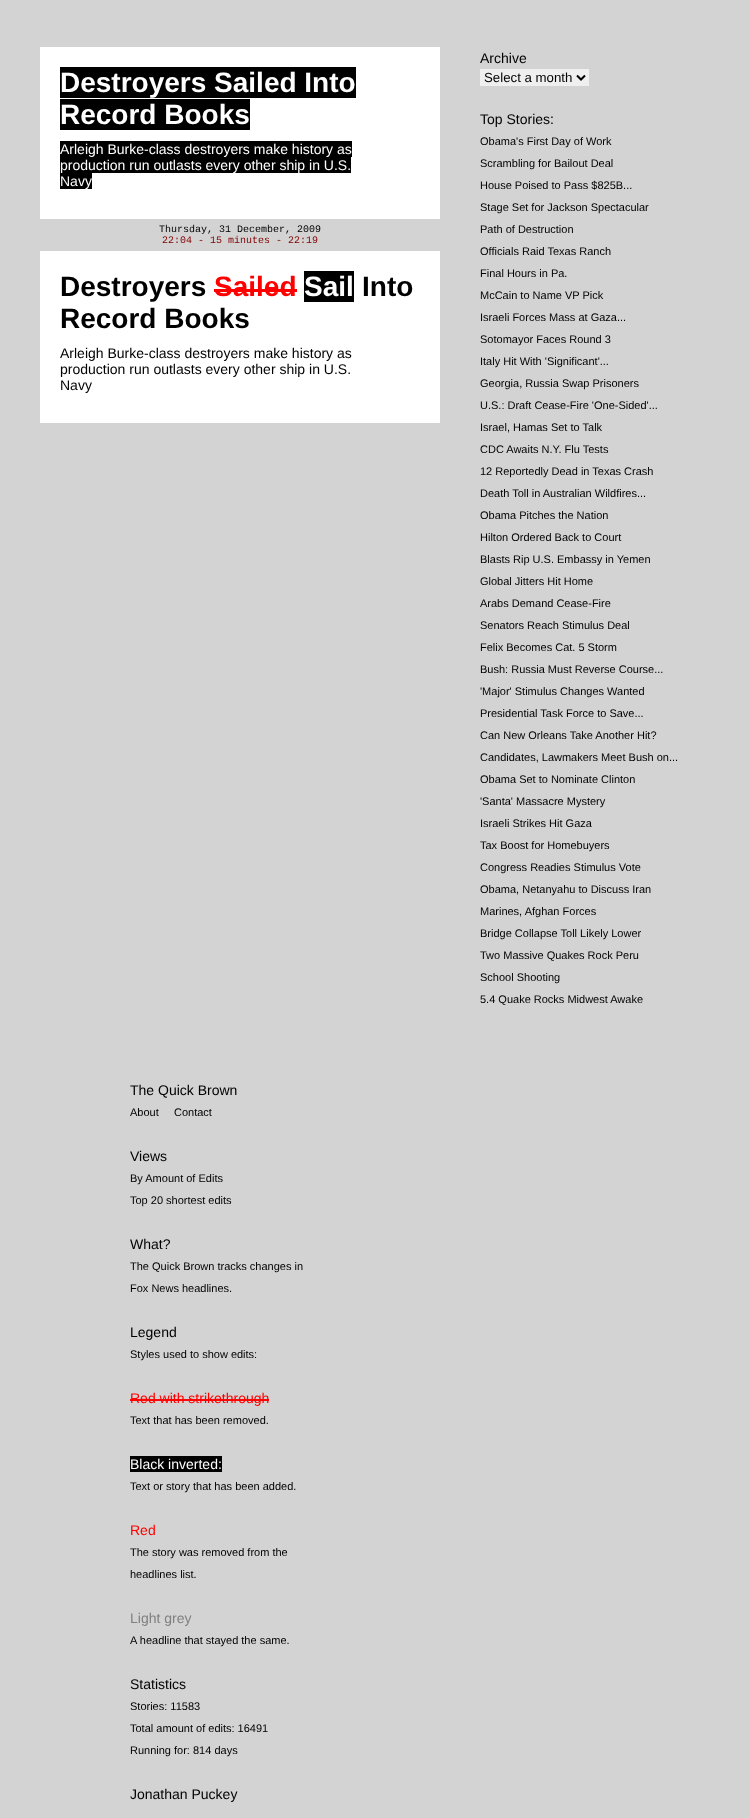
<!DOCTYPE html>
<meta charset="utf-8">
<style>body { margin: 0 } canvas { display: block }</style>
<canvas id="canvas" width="749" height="1818"></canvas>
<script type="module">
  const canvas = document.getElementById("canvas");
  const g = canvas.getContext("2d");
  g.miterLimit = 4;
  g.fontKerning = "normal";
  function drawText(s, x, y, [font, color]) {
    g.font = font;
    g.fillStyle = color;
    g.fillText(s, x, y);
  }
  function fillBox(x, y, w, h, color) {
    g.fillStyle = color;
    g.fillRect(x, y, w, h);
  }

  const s1 = ["bold 28px Liberation Sans", "#FFFFFF"];
  const s2 = ["14px Liberation Sans", "#FFFFFF"];
  const s3 = ["10px Liberation Mono", "#000000"];
  const s4 = ["10px Liberation Mono", "#820000"];
  const s5 = ["bold 28px Liberation Sans", "#000000"];
  const s6 = ["bold 28px Liberation Sans", "#FF0000"];
  const s7 = ["14px Liberation Sans", "#000000"];
  const s8 = ["13.25px Liberation Sans", "#000000"];
  const s9 = ["11px Liberation Sans", "#000000"];
  const s10 = ["14px Liberation Sans", "#FF0000"];
  const s11 = ["14px Liberation Sans", "#808080"];

  fillBox(0, 0, 749, 1818, "#D3D3D3");
  fillBox(40, 47, 400, 172, "#FFFFFF");
  fillBox(60, 67, 296, 31, "#000000");
  drawText("Destroyers Sailed Into", 60, 92, s1);
  fillBox(60, 99, 190, 31, "#000000");
  drawText("Record Books", 60, 124, s1);
  fillBox(60, 141, 292, 16, "#000000");
  drawText("Arleigh Burke-class destroyers make history as", 60, 154, s2);
  fillBox(60, 157, 291, 16, "#000000");
  drawText("production run outlasts every other ship in U.S.", 60, 170, s2);
  fillBox(60, 173, 32, 16, "#000000");
  drawText("Navy", 60, 186, s2);
  drawText("Thursday, 31 December, 2009", 159, 232, s3);
  drawText("22:04 - 15 minutes - 22:19", 162, 243, s4);
  fillBox(40, 251, 400, 172, "#FFFFFF");
  drawText("Destroyers", 60, 296, s5);
  fillBox(214, 289, 83, 3, "#FF0000");
  drawText("Sailed", 214, 296, s6);
  fillBox(304, 271, 50, 31, "#000000");
  drawText("Sail", 304, 296, s1);
  drawText("Into", 362, 296, s5);
  drawText("Record Books", 60, 328, s5);
  drawText("Arleigh Burke-class destroyers make history as", 60, 358, s7);
  drawText("production run outlasts every other ship in U.S.", 60, 374, s7);
  drawText("Navy", 60, 390, s7);
  drawText("Archive", 480, 63, s7);
  fillBox(480, 69, 109, 17, "#EFEFEF");
  g.beginPath();
  g.moveTo(577, 75.5);
  g.lineTo(581, 79.5);
  g.lineTo(585, 75.5);
  g.strokeStyle = "#000000";
  g.lineWidth = 2;
  g.stroke();
  drawText("Select a month", 484, 82, s8);
  drawText("Top Stories:", 480, 124, s7);
  drawText("Obama's First Day of Work", 480, 145, s9);
  drawText("Scrambling for Bailout Deal", 480, 167, s9);
  drawText("House Poised to Pass $825B...", 480, 189, s9);
  drawText("Stage Set for Jackson Spectacular", 480, 211, s9);
  drawText("Path of Destruction", 480, 233, s9);
  drawText("Officials Raid Texas Ranch", 480, 255, s9);
  drawText("Final Hours in Pa.", 480, 277, s9);
  drawText("McCain to Name VP Pick", 480, 299, s9);
  drawText("Israeli Forces Mass at Gaza...", 480, 321, s9);
  drawText("Sotomayor Faces Round 3", 480, 343, s9);
  drawText("Italy Hit With 'Significant'...", 480, 365, s9);
  drawText("Georgia, Russia Swap Prisoners", 480, 387, s9);
  drawText("U.S.: Draft Cease-Fire 'One-Sided'...", 480, 409, s9);
  drawText("Israel, Hamas Set to Talk", 480, 431, s9);
  drawText("CDC Awaits N.Y. Flu Tests", 480, 453, s9);
  drawText("12 Reportedly Dead in Texas Crash", 480, 475, s9);
  drawText("Death Toll in Australian Wildfires...", 480, 497, s9);
  drawText("Obama Pitches the Nation", 480, 519, s9);
  drawText("Hilton Ordered Back to Court", 480, 541, s9);
  drawText("Blasts Rip U.S. Embassy in Yemen", 480, 563, s9);
  drawText("Global Jitters Hit Home", 480, 585, s9);
  drawText("Arabs Demand Cease-Fire", 480, 607, s9);
  drawText("Senators Reach Stimulus Deal", 480, 629, s9);
  drawText("Felix Becomes Cat. 5 Storm", 480, 651, s9);
  drawText("Bush: Russia Must Reverse Course...", 480, 673, s9);
  drawText("'Major' Stimulus Changes Wanted", 480, 695, s9);
  drawText("Presidential Task Force to Save...", 480, 717, s9);
  drawText("Can New Orleans Take Another Hit?", 480, 739, s9);
  drawText("Candidates, Lawmakers Meet Bush on...", 480, 761, s9);
  drawText("Obama Set to Nominate Clinton", 480, 783, s9);
  drawText("'Santa' Massacre Mystery", 480, 805, s9);
  drawText("Israeli Strikes Hit Gaza", 480, 827, s9);
  drawText("Tax Boost for Homebuyers", 480, 849, s9);
  drawText("Congress Readies Stimulus Vote", 480, 871, s9);
  drawText("Obama, Netanyahu to Discuss Iran", 480, 893, s9);
  drawText("Marines, Afghan Forces", 480, 915, s9);
  drawText("Bridge Collapse Toll Likely Lower", 480, 937, s9);
  drawText("Two Massive Quakes Rock Peru", 480, 959, s9);
  drawText("School Shooting", 480, 981, s9);
  drawText("5.4 Quake Rocks Midwest Awake", 480, 1003, s9);
  drawText("The Quick Brown", 130, 1095, s7);
  drawText("About", 130, 1116, s9);
  drawText("Contact", 174, 1116, s9);
  drawText("Views", 130, 1161, s7);
  drawText("By Amount of Edits", 130, 1182, s9);
  drawText("Top 20 shortest edits", 130, 1204, s9);
  drawText("What?", 130, 1249, s7);
  drawText("The Quick Brown tracks changes in", 130, 1270, s9);
  drawText("Fox News headlines.", 130, 1292, s9);
  drawText("Legend", 130, 1337, s7);
  drawText("Styles used to show edits:", 130, 1358, s9);
  fillBox(130, 1399, 139, 2, "#FF0808");
  drawText("Red with strikethrough", 130, 1403, s10);
  drawText("Text that has been removed.", 130, 1424, s9);
  fillBox(130, 1456, 92, 16, "#000000");
  drawText("Black inverted:", 130, 1469, s2);
  drawText("Text or story that has been added.", 130, 1490, s9);
  drawText("Red", 130, 1535, s10);
  drawText("The story was removed from the", 130, 1556, s9);
  drawText("headlines list.", 130, 1578, s9);
  drawText("Light grey", 130, 1623, s11);
  drawText("A headline that stayed the same.", 130, 1644, s9);
  drawText("Statistics", 130, 1689, s7);
  drawText("Stories: 11583", 130, 1710, s9);
  drawText("Total amount of edits: 16491", 130, 1732, s9);
  drawText("Running for: 814 days", 130, 1754, s9);
  drawText("Jonathan Puckey", 130, 1799, s7);
</script>
